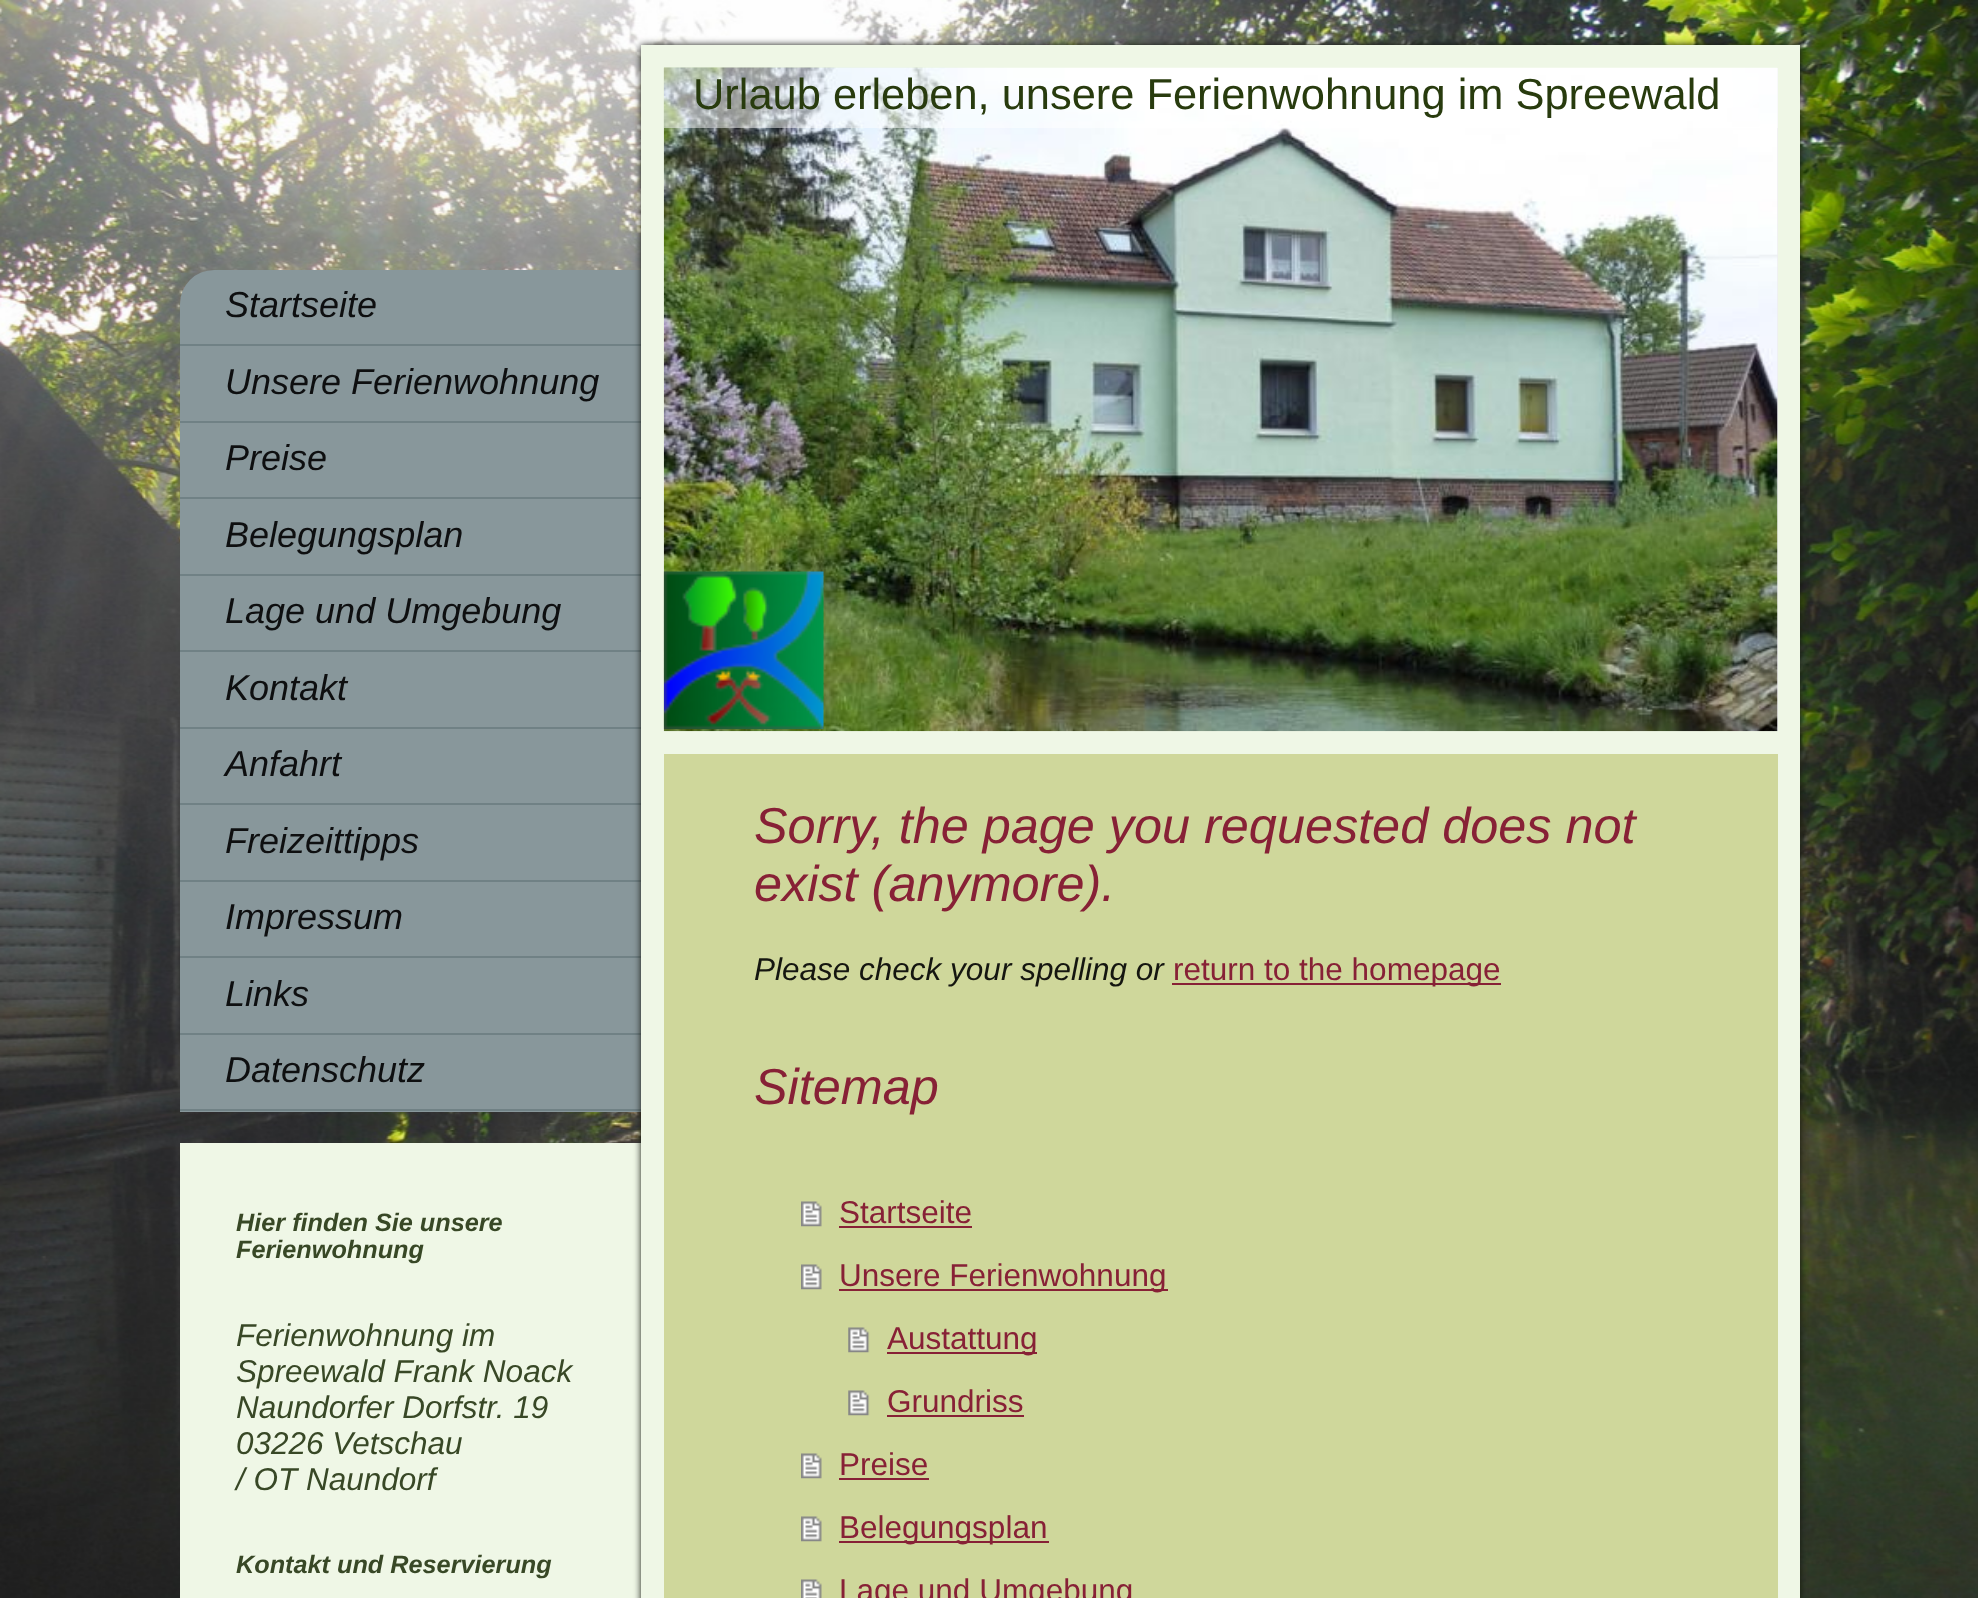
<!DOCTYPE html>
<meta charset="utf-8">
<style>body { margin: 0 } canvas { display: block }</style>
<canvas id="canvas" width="1978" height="1598"></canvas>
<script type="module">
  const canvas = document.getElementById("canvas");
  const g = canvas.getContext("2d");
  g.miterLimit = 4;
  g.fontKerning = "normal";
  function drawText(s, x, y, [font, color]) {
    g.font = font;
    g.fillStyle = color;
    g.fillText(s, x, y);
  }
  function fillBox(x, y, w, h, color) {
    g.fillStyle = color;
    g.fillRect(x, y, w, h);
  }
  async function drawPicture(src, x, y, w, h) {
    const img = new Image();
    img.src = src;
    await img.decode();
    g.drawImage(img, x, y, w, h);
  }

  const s1 = ["italic 36px Liberation Sans", "#0E0F10"];
  const s2 = ["italic bold 25.25px Liberation Sans", "#384826"];
  const s3 = ["italic 31.5px Liberation Sans", "#384826"];
  const s4 = ["43.4px Liberation Sans", "#283B0E"];
  const s5 = ["italic 50.4px Liberation Sans", "#872136"];
  const s6 = ["italic 31.5px Liberation Sans", "#151610"];
  const s7 = ["31.5px Liberation Sans", "#872136"];

  fillBox(0, 0, 1978, 1598, "#FFFFFF");
  await drawPicture("pic1.png", 0, 0, 1978, 1598);
  g.fillStyle = "#88979B";
  g.beginPath();
  g.roundRect(180, 270, 461, 842, [34, 0, 0, 0]);
  g.fill();
  fillBox(180, 344, 461, 2, "#708185");
  drawText("Startseite", 225, 317, s1);
  fillBox(180, 421, 461, 2, "#708185");
  drawText("Unsere Ferienwohnung", 225, 394, s1);
  fillBox(180, 497, 461, 2, "#708185");
  drawText("Preise", 225, 470, s1);
  fillBox(180, 574, 461, 2, "#708185");
  drawText("Belegungsplan", 225, 547, s1);
  fillBox(180, 650, 461, 2, "#708185");
  drawText("Lage und Umgebung", 225, 623, s1);
  fillBox(180, 727, 461, 2, "#708185");
  drawText("Kontakt", 225, 700, s1);
  fillBox(180, 803, 461, 2, "#708185");
  drawText("Anfahrt", 225, 776, s1);
  fillBox(180, 880, 461, 2, "#708185");
  drawText("Freizeittipps", 225, 853, s1);
  fillBox(180, 956, 461, 2, "#708185");
  drawText("Impressum", 225, 929, s1);
  fillBox(180, 1033, 461, 2, "#708185");
  drawText("Links", 225, 1006, s1);
  fillBox(180, 1109, 461, 2, "#708185");
  drawText("Datenschutz", 225, 1082, s1);
  fillBox(180, 1143, 461, 455, "#EFF7E6");
  drawText("Hier finden Sie unsere", 236, 1231, s2);
  drawText("Ferienwohnung", 236, 1258, s2);
  drawText("Ferienwohnung im", 236, 1346, s3);
  drawText("Spreewald Frank Noack", 236, 1382, s3);
  drawText("Naundorfer Dorfstr. 19", 236, 1418, s3);
  drawText("03226 Vetschau", 236, 1454, s3);
  drawText("/ OT Naundorf", 236, 1490, s3);
  drawText("Kontakt und Reservierung", 236, 1573, s2);
  g.fillStyle = "#151610";
  g.filter = "blur(3.5px)";
  g.beginPath();
  g.rect(641, 45, 1159, 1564);
  g.fill();
  g.filter = "none";
  fillBox(664, 754, 1114, 844, "#CFD79B");
  g.strokeStyle = "#EFF7E6";
  g.lineWidth = 23;
  g.strokeRect(652.5, 56.5, 1136, 686);
  fillBox(1777, 68, 1, 663, "#EEEEEE");
  await drawPicture("pic2.png", 663, 67, 1115, 665);
  fillBox(664, 68, 1114, 60, "rgba(255, 255, 255, 0.5)");
  drawText("Urlaub erleben, unsere Ferienwohnung im Spreewald", 693, 109, s4);
  await drawPicture("pic3.png", 663, 571, 161, 158);
  fillBox(1778, 754, 22, 844, "#EFF7E6");
  fillBox(641, 754, 23, 844, "#EFF7E6");
  drawText("Sorry, the page you requested does not", 754, 843, s5);
  drawText("exist (anymore).", 754, 901, s5);
  drawText("Please check your spelling or", 754, 980, s6);
  fillBox(1172, 983, 329, 2, "#872136");
  drawText("return to the homepage", 1173, 980, s7);
  drawText("Sitemap", 754, 1104, s5);
  await drawPicture("pic4.png", 801, 1201, 21, 26);
  drawText("Startseite", 839, 1223, s7);
  fillBox(839, 1226, 133, 2, "#872136");
  await drawPicture("pic4.png", 801, 1264, 21, 26);
  fillBox(839, 1289, 329, 2, "#872136");
  drawText("Unsere Ferienwohnung", 839, 1286, s7);
  await drawPicture("pic5.png", 848, 1327, 22, 26);
  fillBox(887, 1352, 150, 2, "#872136");
  drawText("Austattung", 887, 1349, s7);
  await drawPicture("pic5.png", 848, 1390, 22, 26);
  drawText("Grundriss", 887, 1412, s7);
  fillBox(887, 1415, 137, 2, "#872136");
  await drawPicture("pic4.png", 801, 1453, 21, 26);
  drawText("Preise", 839, 1475, s7);
  fillBox(839, 1478, 90, 2, "#872136");
  await drawPicture("pic4.png", 801, 1516, 21, 26);
  fillBox(839, 1541, 210, 2, "#872136");
  drawText("Belegungsplan", 839, 1538, s7);
  await drawPicture("pic6.png", 801, 1579, 21, 19);
  drawText("Lage und Umgebung", 839, 1601, s7);
</script>
